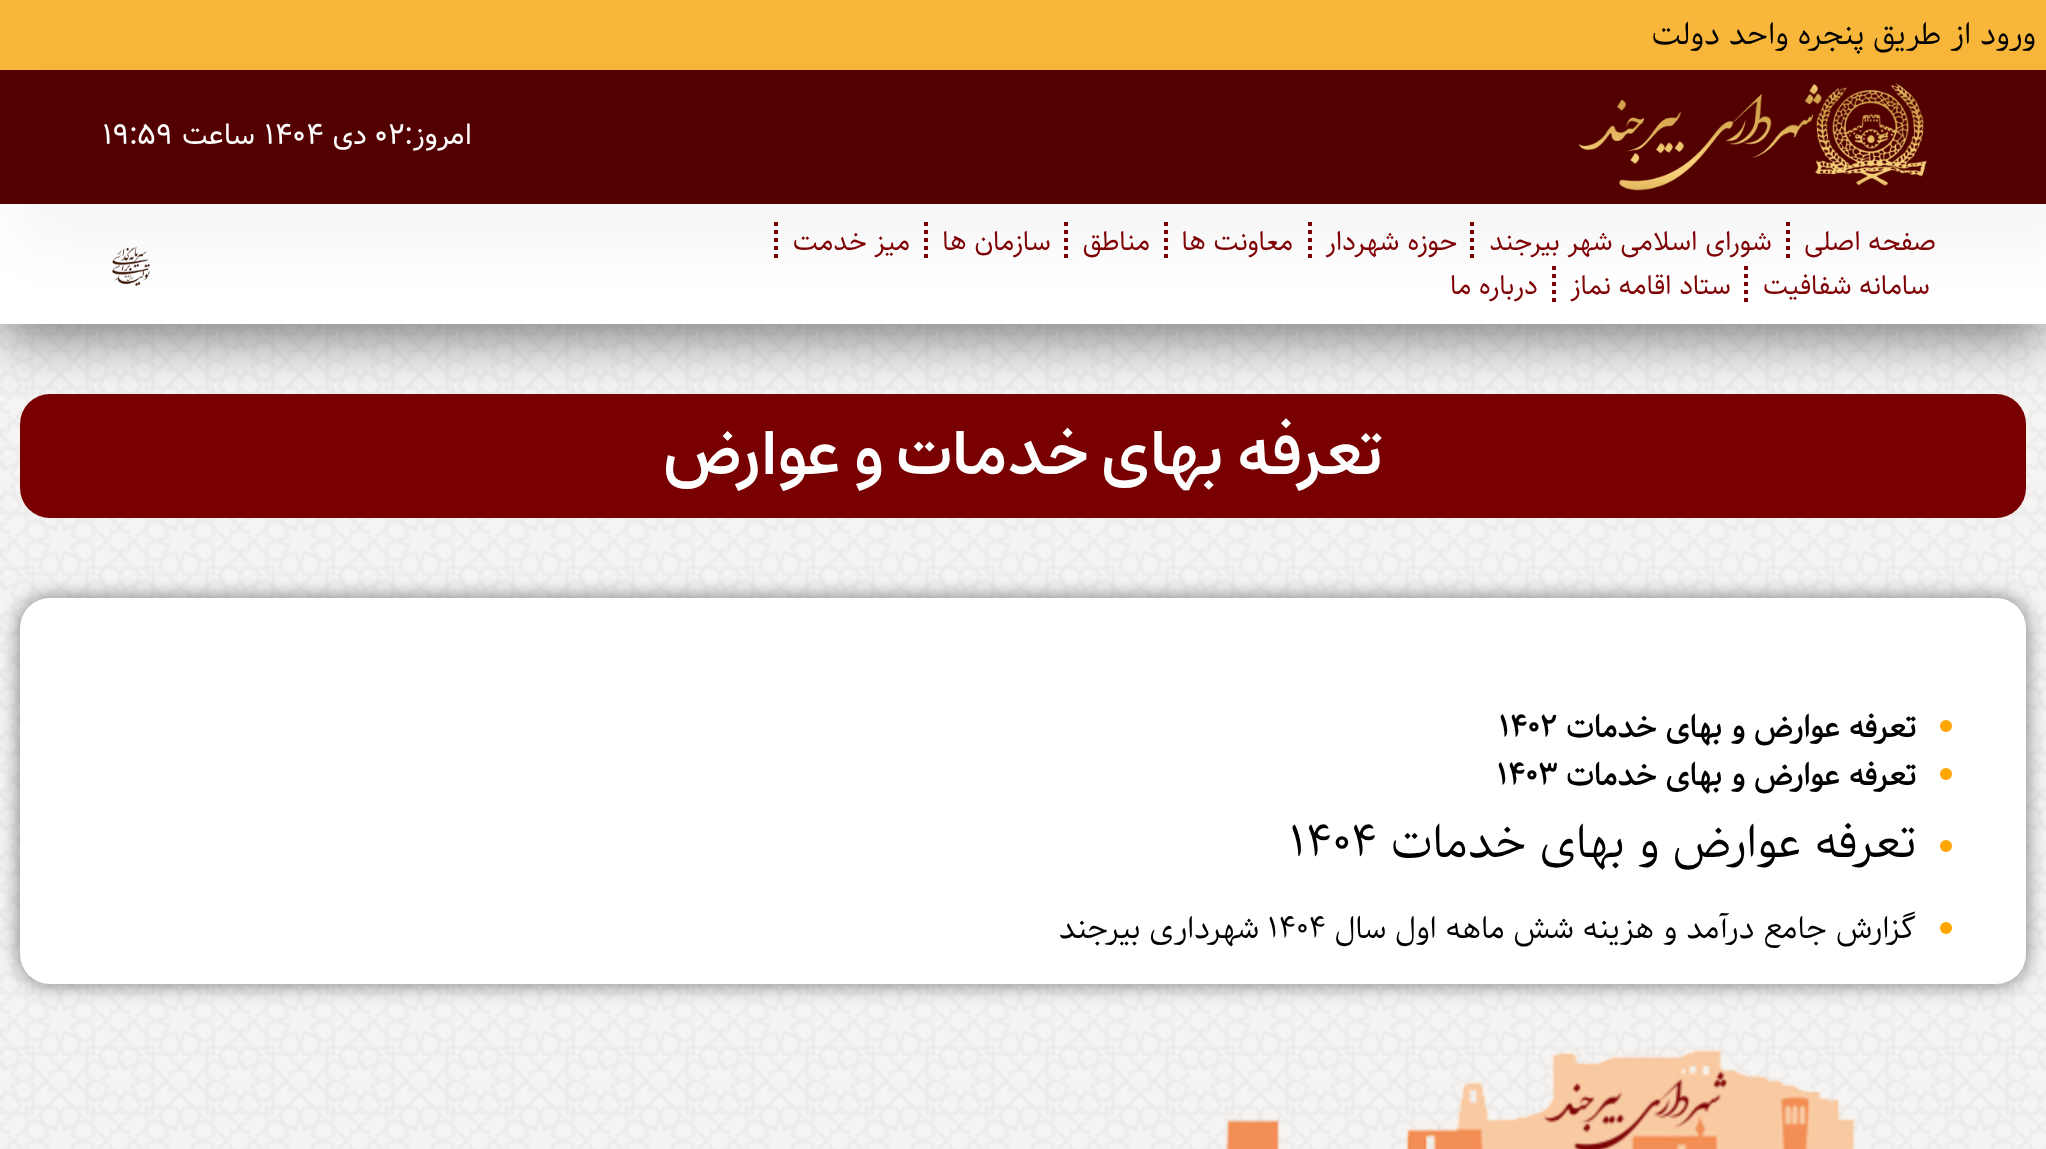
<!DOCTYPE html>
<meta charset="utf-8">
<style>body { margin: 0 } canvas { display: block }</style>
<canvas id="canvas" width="2046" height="1149"></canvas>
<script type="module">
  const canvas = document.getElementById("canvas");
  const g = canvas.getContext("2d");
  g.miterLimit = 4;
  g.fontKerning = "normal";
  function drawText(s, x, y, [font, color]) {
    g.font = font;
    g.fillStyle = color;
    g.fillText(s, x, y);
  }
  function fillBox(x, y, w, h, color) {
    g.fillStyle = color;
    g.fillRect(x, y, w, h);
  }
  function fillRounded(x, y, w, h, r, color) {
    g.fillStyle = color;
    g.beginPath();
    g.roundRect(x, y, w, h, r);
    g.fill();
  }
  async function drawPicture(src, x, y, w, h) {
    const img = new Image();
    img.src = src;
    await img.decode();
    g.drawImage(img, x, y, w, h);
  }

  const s1 = ["32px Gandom", "#000000"];
  const s2 = ["30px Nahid", "#FFFFFF"];
  const s3 = ["28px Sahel", "#7E0204"];
  const s4 = ["600 64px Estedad", "#FFFFFF"];
  const s5 = ["bold 32px Gandom", "#000000"];
  const s6 = ["48px Gandom", "#000000"];

  fillBox(0, 0, 2046, 1149, "#FFFFFF");
  await drawPicture("pic1.png", 0, 324, 2046, 825);
  fillBox(0, 0, 2046, 70, "#F8B63A");
  g.direction = "rtl";
  drawText("ورود از طریق پنجره واحد دولت", 2036, 44, s1);
  fillRounded(20, 394, 2006, 124, 30, "#780000");
  g.fillStyle = "rgba(0, 0, 0, 0.5)";
  g.filter = "blur(28px)";
  g.beginPath();
  g.rect(0, 216, 2046, 120);
  g.fill();
  g.filter = "none";
  fillBox(0, 204, 2046, 120, "#FFFFFF");
  g.beginPath();
  g.moveTo(1788, 222);
  g.lineTo(1788, 262);
  g.strokeStyle = "#7E0204";
  g.lineWidth = 4;
  g.setLineDash([4, 4]);
  g.stroke();
  g.beginPath();
  g.moveTo(1472, 222);
  g.lineTo(1472, 262);
  g.stroke();
  g.beginPath();
  g.moveTo(1310, 222);
  g.lineTo(1310, 262);
  g.stroke();
  g.beginPath();
  g.moveTo(1166, 222);
  g.lineTo(1166, 262);
  g.stroke();
  g.beginPath();
  g.moveTo(1066, 222);
  g.lineTo(1066, 262);
  g.stroke();
  g.beginPath();
  g.moveTo(926, 222);
  g.lineTo(926, 262);
  g.stroke();
  g.beginPath();
  g.moveTo(776, 222);
  g.lineTo(776, 262);
  g.stroke();
  g.beginPath();
  g.moveTo(1746, 266);
  g.lineTo(1746, 306);
  g.stroke();
  g.beginPath();
  g.moveTo(1554, 266);
  g.lineTo(1554, 306);
  g.stroke();
  await drawPicture("pic3.png", 112, 246, 38, 41);
  g.fillStyle = "rgba(0, 0, 0, 0.04)";
  g.filter = "blur(30px)";
  g.beginPath();
  g.rect(20, 90, 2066, 154);
  g.fill();
  g.filter = "none";
  fillBox(0, 70, 2046, 134, "#530001");
  await drawPicture("pic2.png", 1578, 83, 349, 109);
  drawText("امروز:", 472, 144, s2);
  g.direction = "ltr";
  drawText("۰۲", 376, 144, s2);
  g.direction = "rtl";
  drawText("دی", 367, 144, s2);
  g.direction = "ltr";
  drawText("۱۴۰۴", 264, 144, s2);
  g.direction = "rtl";
  drawText("ساعت", 255, 144, s2);
  g.direction = "ltr";
  drawText("۱۹:۵۹", 102, 144, s2);
  g.direction = "rtl";
  drawText("صفحه اصلی", 1936, 250, s3);
  drawText("شورای اسلامی شهر بیرجند", 1772, 250, s3);
  drawText("حوزه شهردار", 1457, 250, s3);
  drawText("معاونت ها", 1293, 250, s3);
  drawText("مناطق", 1150, 250, s3);
  drawText("سازمان ها", 1051, 250, s3);
  drawText("میز خدمت", 910, 250, s3);
  drawText("سامانه شفافیت", 1930, 294, s3);
  drawText("ستاد اقامه نماز", 1731, 294, s3);
  drawText("درباره ما", 1538, 294, s3);
  drawText("تعرفه بهای خدمات و عوارض", 1382, 474, s4);
  g.fillStyle = "rgba(0, 0, 0, 0.5)";
  g.filter = "blur(10px)";
  g.beginPath();
  g.roundRect(20, 598, 2006, 386, 30);
  g.fill();
  g.filter = "none";
  fillRounded(20, 598, 2006, 386, 30, "#FFFFFF");
  g.fillStyle = "#FFA600";
  g.beginPath();
  g.arc(1946, 726, 6, 0, Math.PI * 2);
  g.fill();
  drawText("تعرفه عوارض و بهای خدمات", 1916, 737, s5);
  g.direction = "ltr";
  drawText("۱۴۰۲", 1499, 737, s5);
  g.fillStyle = "#FFA600";
  g.beginPath();
  g.arc(1946, 774, 6, 0, Math.PI * 2);
  g.fill();
  g.direction = "rtl";
  drawText("تعرفه عوارض و بهای خدمات", 1916, 785, s5);
  g.direction = "ltr";
  drawText("۱۴۰۳", 1497, 785, s5);
  g.fillStyle = "#FFA600";
  g.beginPath();
  g.arc(1946, 846, 6, 0, Math.PI * 2);
  g.fill();
  g.direction = "rtl";
  drawText("تعرفه عوارض و بهای خدمات", 1916, 857, s6);
  g.direction = "ltr";
  drawText("۱۴۰۴", 1290, 857, s6);
  g.fillStyle = "#FFA600";
  g.beginPath();
  g.arc(1946, 928, 6, 0, Math.PI * 2);
  g.fill();
  g.direction = "rtl";
  drawText("گزارش جامع درآمد و هزینه شش ماهه اول سال", 1916, 938, s1);
  g.direction = "ltr";
  drawText("۱۴۰۴", 1268, 938, s1);
  g.direction = "rtl";
  drawText("شهرداری بیرجند", 1259, 938, s1);
  await drawPicture("pic4.png", 1225, 1048, 631, 101);
</script>
